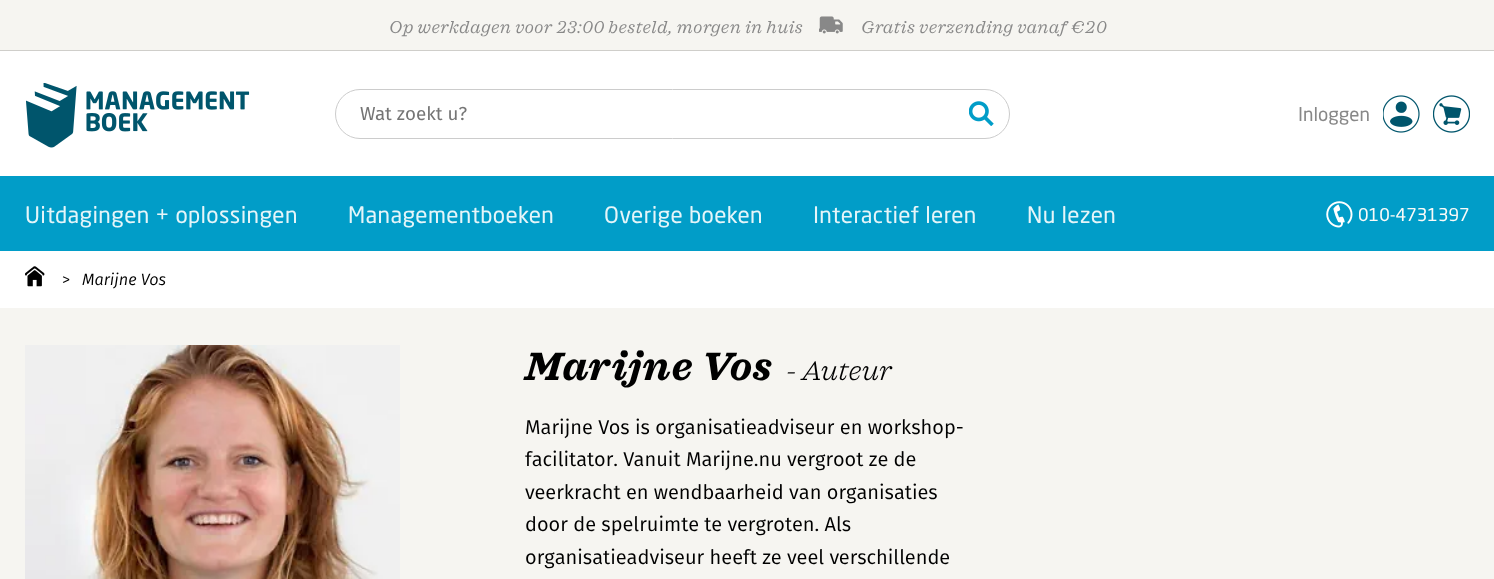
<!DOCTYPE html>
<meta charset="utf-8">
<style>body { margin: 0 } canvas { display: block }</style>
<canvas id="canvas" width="1494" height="579"></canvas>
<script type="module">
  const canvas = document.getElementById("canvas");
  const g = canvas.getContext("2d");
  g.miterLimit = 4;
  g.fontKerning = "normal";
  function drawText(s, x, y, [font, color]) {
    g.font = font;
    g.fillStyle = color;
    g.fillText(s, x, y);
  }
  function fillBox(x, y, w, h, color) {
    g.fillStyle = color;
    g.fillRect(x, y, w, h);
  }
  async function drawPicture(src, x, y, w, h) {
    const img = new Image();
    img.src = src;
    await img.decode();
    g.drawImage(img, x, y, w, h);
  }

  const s1 = ["italic 17.5px 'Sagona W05'", "#888888"];
  const s2 = ["18.75px 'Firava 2'", "#757575"];
  const s3 = ["18.75px 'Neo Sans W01'", "#888888"];
  const s4 = ["22.5px 'Neo Sans W01'", "#E5F5F9"];
  const s5 = ["17.5px 'Neo Sans W01'", "#FAFAF8"];
  const s6 = ["300 16.25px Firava", "#000000"];
  const s7 = ["italic 300 16.25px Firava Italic", "#000000"];
  const s8 = ["italic bold 40px 'Sagona W05'", "#000000"];
  const s9 = ["italic 300 27.5px 'Sagona W05'", "#000000"];
  const s10 = ["20px Firava", "#000000"];

  fillBox(0, 0, 1494, 579, "#FFFFFF");
  fillBox(0, 0, 1494, 50, "#F6F5F1");
  fillBox(0, 50, 1494, 1, "#CFCECA");
  g.letterSpacing = "0.55px";
  drawText("Op werkdagen voor 23:00 besteld, morgen in huis", 389, 33, s1);
  await drawPicture("pic1.png", 819, 16, 24, 18);
  drawText("Gratis verzending vanaf €20", 861, 33, s1);
  await drawPicture("pic2.png", 26, 83, 224, 65);
  await drawPicture("pic3.png", 969, 101, 25, 25);
  g.beginPath();
  g.roundRect(335.5, 89.5, 674, 49, 24.5);
  g.strokeStyle = "#CCCCCC";
  g.stroke();
  g.letterSpacing = "0px";
  drawText("Wat zoekt u?", 360, 120, s2);
  drawText("Inloggen", 1298, 121, s3);
  await drawPicture("pic4.png", 1383, 95, 37, 38);
  await drawPicture("pic5.png", 1433, 95, 37, 38);
  fillBox(0, 176, 1494, 75, "#019DC8");
  g.letterSpacing = "0.35px";
  drawText("Uitdagingen + oplossingen", 25, 223, s4);
  drawText("Managementboeken", 348, 223, s4);
  drawText("Overige boeken", 604, 223, s4);
  drawText("Interactief leren", 813, 223, s4);
  drawText("Nu lezen", 1027, 223, s4);
  await drawPicture("pic6.png", 1326, 201, 27, 27);
  g.letterSpacing = "0px";
  drawText("010-4731397", 1358, 221, s5);
  await drawPicture("pic7.png", 25, 266, 20, 21);
  drawText(">", 62, 285, s6);
  drawText("Marijne Vos", 82, 285, s7);
  fillBox(0, 308, 1494, 271, "#F6F5F1");
  await drawPicture("pic8.png", 25, 345, 375, 234);
  g.letterSpacing = "0.75px";
  drawText("Marijne Vos", 525, 380, s8);
  g.letterSpacing = "0.5px";
  drawText("- Auteur", 786, 380, s9);
  g.letterSpacing = "0px";
  drawText("Marijne Vos is organisatieadviseur en workshop-", 525, 434, s10);
  drawText("facilitator. Vanuit Marijne.nu vergroot ze de", 525, 466, s10);
  drawText("veerkracht en wendbaarheid van organisaties", 525, 499, s10);
  drawText("door de spelruimte te vergroten. Als", 525, 531, s10);
  drawText("organisatieadviseur heeft ze veel verschillende", 525, 564, s10);
</script>
